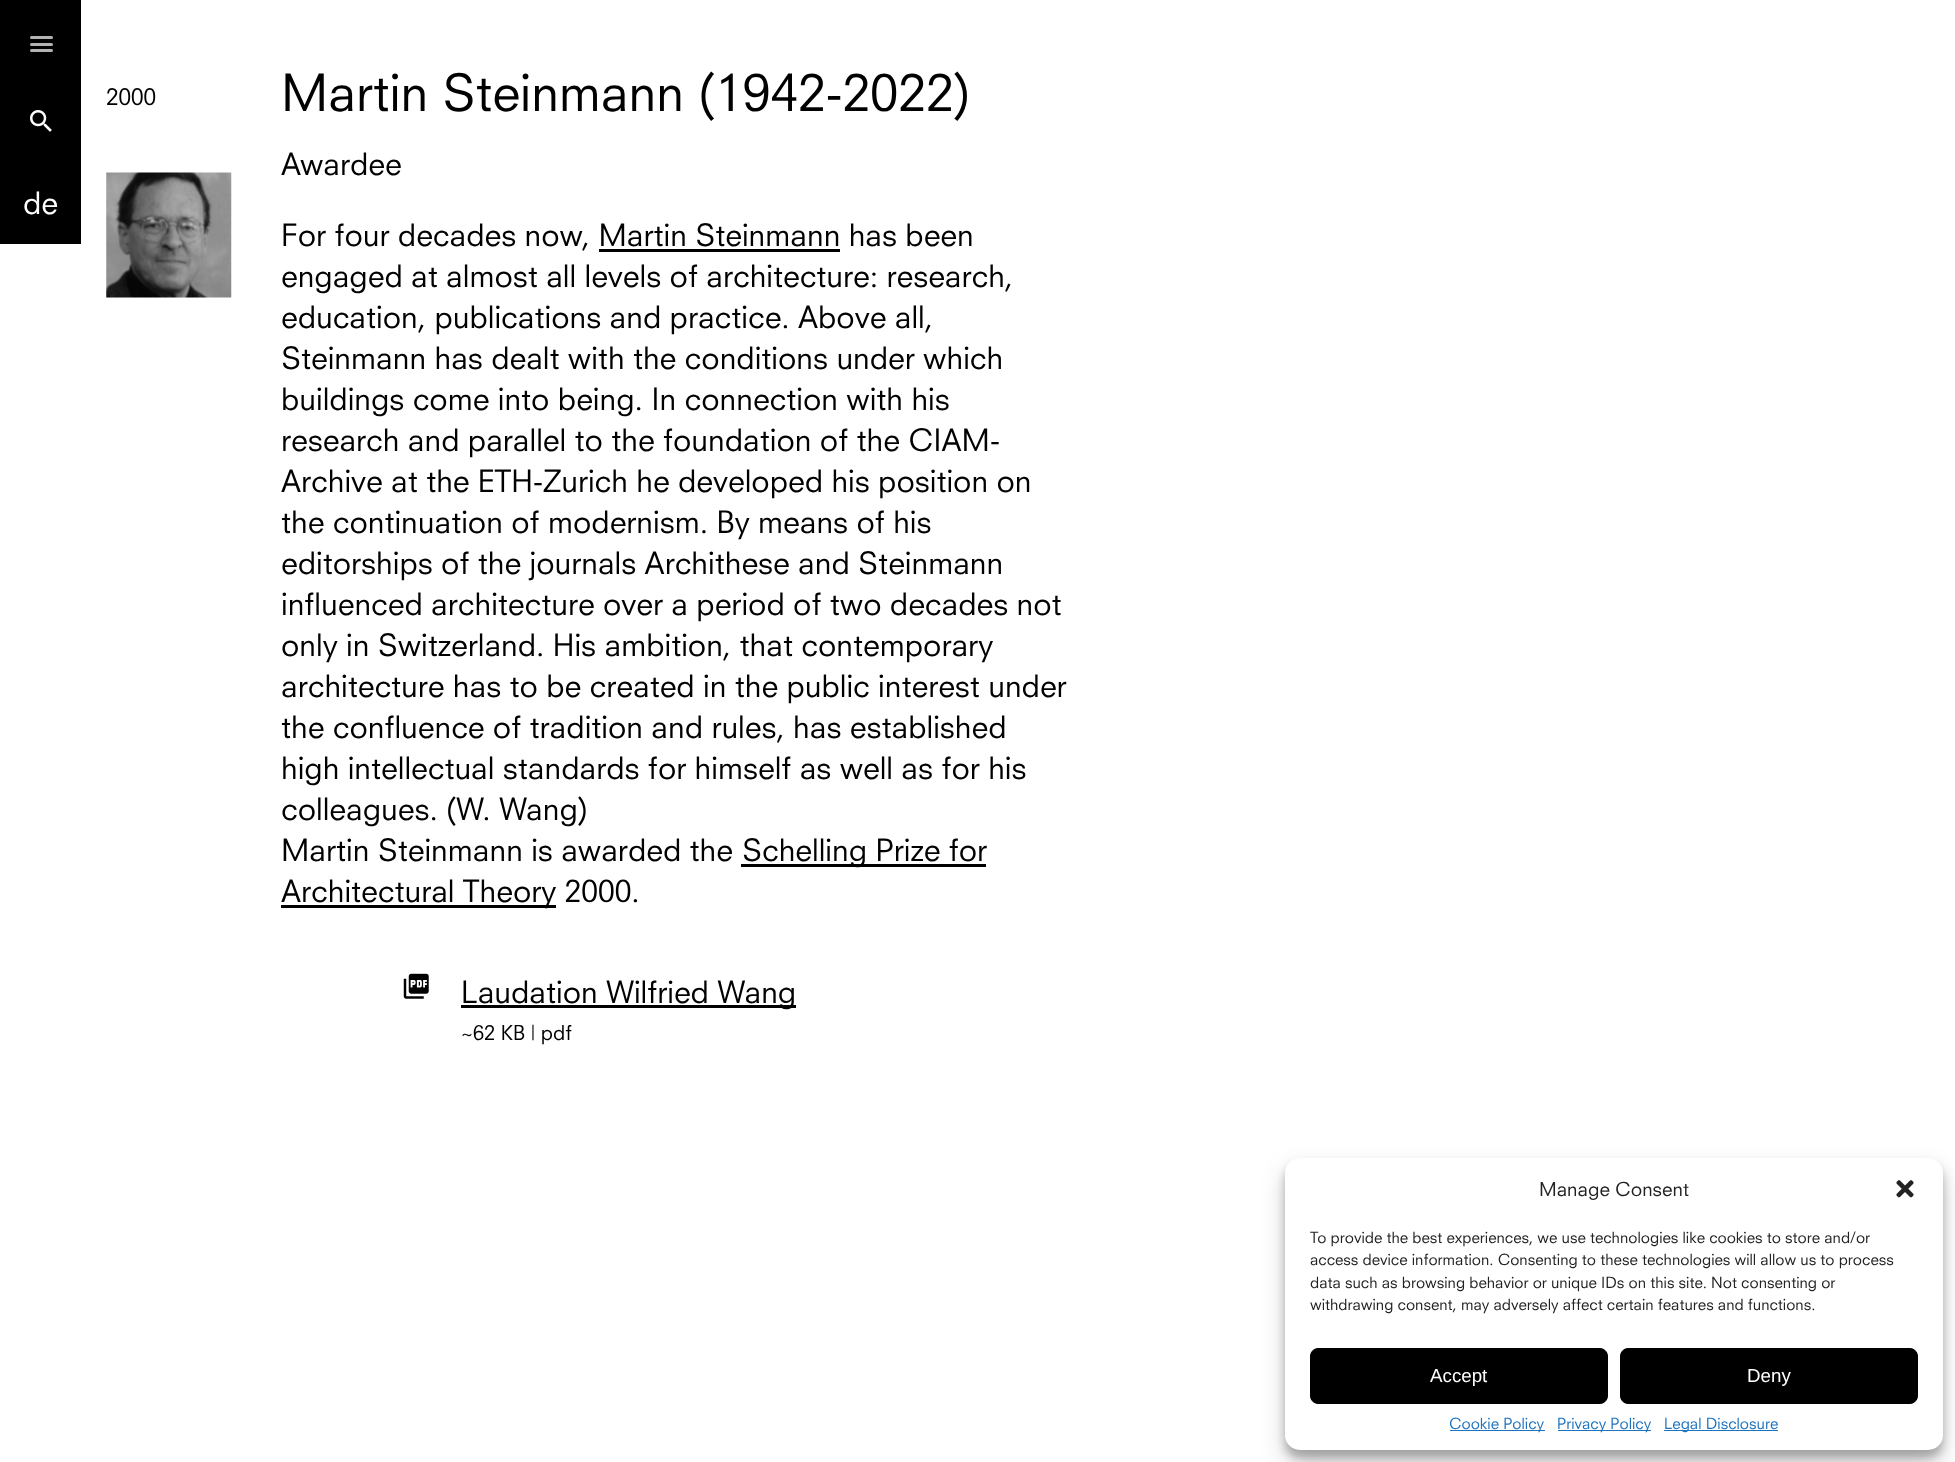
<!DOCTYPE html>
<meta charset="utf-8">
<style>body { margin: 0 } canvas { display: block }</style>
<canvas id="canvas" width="1955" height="1462"></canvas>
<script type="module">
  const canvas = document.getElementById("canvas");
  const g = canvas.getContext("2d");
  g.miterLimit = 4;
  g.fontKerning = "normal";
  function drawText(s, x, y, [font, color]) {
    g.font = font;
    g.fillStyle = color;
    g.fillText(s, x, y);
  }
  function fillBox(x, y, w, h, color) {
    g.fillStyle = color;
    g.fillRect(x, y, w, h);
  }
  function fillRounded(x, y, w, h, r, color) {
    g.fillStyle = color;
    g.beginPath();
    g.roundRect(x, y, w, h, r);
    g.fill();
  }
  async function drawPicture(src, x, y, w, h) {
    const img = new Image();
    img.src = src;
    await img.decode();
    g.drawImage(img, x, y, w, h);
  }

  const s1 = ["30px 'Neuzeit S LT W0'", "#FFFFFF"];
  const s2 = ["22.5px 'Neuzeit S LT W0'", "#000000"];
  const s3 = ["50px 'Neuzeit S LT W0'", "#000000"];
  const s4 = ["30px 'Neuzeit S LT W0'", "#000000"];
  const s5 = ["20px 'Neuzeit S LT W0'", "#000000"];
  const s6 = ["18.75px 'Neuzeit S LT W0'", "#222222"];
  const s7 = ["15px 'Neuzeit S LT W0'", "#222222"];
  const s8 = ["18.75px Liberation Sans", "#FFFFFF"];
  const s9 = ["15px 'Neuzeit S LT W0'", "#1E73BE"];

  fillBox(0, 0, 1955, 1462, "#FFFFFF");
  fillBox(0, 0, 81, 244, "#000000");
  fillRounded(30, 43, 23, 3, 1.5, "#B3B3B3");
  fillRounded(30, 36, 23, 3, 1.5, "#B3B3B3");
  fillRounded(30, 49, 23, 3, 1.5, "#B3B3B3");
  await drawPicture("pic1.png", 30, 110, 22, 22);
  drawText("de", 23, 214, s1);
  drawText("2000", 106, 105, s2);
  drawText("Martin Steinmann (1942-2022)", 281, 111, s3);
  drawText("Awardee", 281, 175, s4);
  await drawPicture("pic2.png", 106, 172, 126, 126);
  drawText("For four decades now, Martin Steinmann has been", 281, 246, s4);
  fillBox(599, 249, 241, 3, "#000000");
  drawText("engaged at almost all levels of architecture: research,", 281, 287, s4);
  drawText("education, publications and practice. Above all,", 281, 328, s4);
  drawText("Steinmann has dealt with the conditions under which", 281, 369, s4);
  drawText("buildings come into being. In connection with his", 281, 410, s4);
  drawText("research and parallel to the foundation of the CIAM-", 281, 451, s4);
  drawText("Archive at the ETH-Zurich he developed his position on", 281, 492, s4);
  drawText("the continuation of modernism. By means of his", 281, 533, s4);
  drawText("editorships of the journals Archithese and Steinmann", 281, 574, s4);
  drawText("influenced architecture over a period of two decades not", 281, 615, s4);
  drawText("only in Switzerland. His ambition, that contemporary", 281, 656, s4);
  drawText("architecture has to be created in the public interest under", 281, 697, s4);
  drawText("the confluence of tradition and rules, has established", 281, 738, s4);
  drawText("high intellectual standards for himself as well as for his", 281, 779, s4);
  drawText("colleagues. (W. Wang)", 281, 820, s4);
  drawText("Martin Steinmann is awarded the", 281, 861, s4);
  fillBox(741, 864, 245, 3, "#000000");
  drawText("Schelling Prize for", 742, 861, s4);
  fillBox(281, 905, 275, 3, "#000000");
  drawText("Architectural Theory 2000.", 281, 902, s4);
  await drawPicture("pic3.png", 403, 973, 26, 26);
  fillBox(461, 1005, 335, 3, "#000000");
  drawText("Laudation Wilfried Wang", 461, 1003, s4);
  drawText("~62 KB | pdf", 461, 1040, s5);
  g.fillStyle = "rgba(0, 0, 0, 0.23)";
  g.filter = "blur(4px)";
  g.beginPath();
  g.roundRect(1285, 1165, 658, 293, 15);
  g.fill();
  g.filter = "none";
  g.fillStyle = "rgba(0, 0, 0, 0.19)";
  g.filter = "blur(12.5px)";
  g.beginPath();
  g.roundRect(1285, 1170, 658, 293, 15);
  g.fill();
  g.filter = "none";
  fillRounded(1285, 1158, 658, 292, 15, "#FFFFFF");
  drawText("Manage Consent", 1539, 1196, s6);
  await drawPicture("pic4.png", 1896, 1180, 18, 18);
  drawText("To provide the best experiences, we use technologies like cookies to store and/or", 1310, 1243, s7);
  drawText("access device information. Consenting to these technologies will allow us to process", 1310, 1265, s7);
  drawText("data such as browsing behavior or unique IDs on this site. Not consenting or", 1310, 1288, s7);
  drawText("withdrawing consent, may adversely affect certain features and functions.", 1310, 1310, s7);
  g.fillStyle = "#000000";
  g.beginPath();
  g.roundRect(1310.5, 1348.5, 297, 55, 7.5);
  g.fill();
  g.strokeStyle = "#000000";
  g.stroke();
  drawText("Accept", 1430, 1382, s8);
  g.fillStyle = "#000000";
  g.beginPath();
  g.roundRect(1620.5, 1348.5, 297, 55, 7.5);
  g.fill();
  g.stroke();
  drawText("Deny", 1747, 1382, s8);
  fillBox(1450, 1430, 95, 1, "#1E73BE");
  drawText("Cookie Policy", 1449, 1429, s9);
  fillBox(1558, 1430, 93, 1, "#1E73BE");
  drawText("Privacy Policy", 1557, 1429, s9);
  fillBox(1664, 1430, 114, 1, "#1E73BE");
  drawText("Legal Disclosure", 1664, 1429, s9);
</script>
